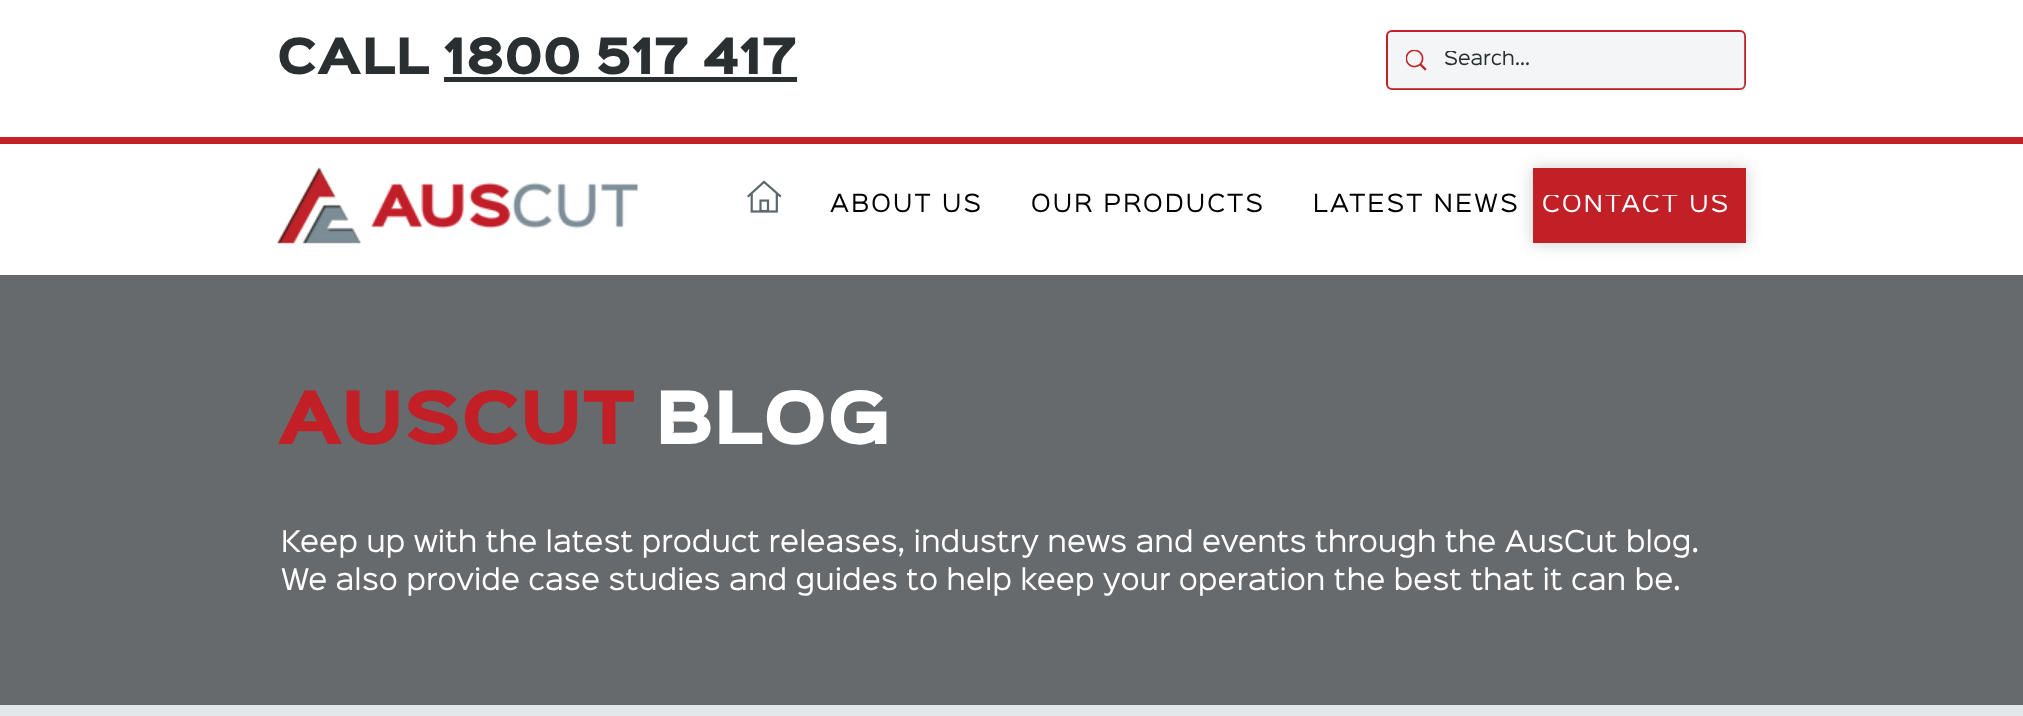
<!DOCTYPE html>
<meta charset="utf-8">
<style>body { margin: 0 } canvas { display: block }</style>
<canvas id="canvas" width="2023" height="716"></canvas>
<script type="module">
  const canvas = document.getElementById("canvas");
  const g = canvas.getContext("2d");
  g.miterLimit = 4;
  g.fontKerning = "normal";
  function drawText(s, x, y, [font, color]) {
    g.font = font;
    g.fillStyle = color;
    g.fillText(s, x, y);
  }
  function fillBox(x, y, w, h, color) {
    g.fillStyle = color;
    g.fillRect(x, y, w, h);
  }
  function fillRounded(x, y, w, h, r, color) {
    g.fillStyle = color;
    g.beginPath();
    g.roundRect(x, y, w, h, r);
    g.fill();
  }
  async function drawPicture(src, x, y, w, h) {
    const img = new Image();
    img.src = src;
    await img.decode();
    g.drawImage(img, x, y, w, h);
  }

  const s1 = ["900 45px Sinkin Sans", "#2A3032"];
  const s2 = ["18px Sinkin Sans", "#2A3032"];
  const s3 = ["22.5px Sinkin Sans", "#000000"];
  const s4 = ["22.5px Sinkin Sans", "#FFFFFF"];
  const s5 = ["900 66px Sinkin Sans", "#C21F27"];
  const s6 = ["900 66px Sinkin Sans", "#FFFFFF"];
  const s7 = ["27px Sinkin Sans", "#FFFFFF"];

  fillBox(0, 0, 2023, 716, "#FFFFFF");
  drawText("CALL 1800 517 417", 277, 74, s1);
  fillBox(444, 77, 353, 5, "#2A3032");
  g.beginPath();
  g.roundRect(1387, 31, 358, 58, 5);
  g.strokeStyle = "#C21F27";
  g.lineWidth = 2;
  g.stroke();
  fillRounded(1388, 32, 357, 57, 5, "rgba(208, 216, 220, 0.25)");
  await drawPicture("pic1.png", 1406, 50, 21, 21);
  g.save();
  g.beginPath();
  g.rect(1445, 51, 237, 18);
  g.clip();
  drawText("Search...", 1444, 65, s2);
  g.restore();
  fillBox(0, 137, 2023, 7, "#C21F27");
  await drawPicture("pic2.png", 277, 167, 361, 77);
  await drawPicture("pic3.png", 747, 180, 35, 33);
  g.letterSpacing = "2.25px";
  drawText("ABOUT US", 830, 212, s3);
  drawText("OUR PRODUCTS", 1031, 212, s3);
  drawText("LATEST NEWS", 1313, 212, s3);
  g.fillStyle = "rgba(42, 48, 50, 0.25)";
  g.filter = "blur(8px)";
  g.beginPath();
  g.rect(1533, 168, 213, 75);
  g.fill();
  g.filter = "none";
  fillBox(1533, 168, 213, 75, "#C21F27");
  g.save();
  g.beginPath();
  g.rect(1542, 195, 188, 23);
  g.clip();
  drawText("CONTACT US", 1542, 212, s4);
  g.restore();
  fillBox(0, 275, 2023, 430, "#666A6C");
  g.letterSpacing = "0px";
  drawText("AUSCUT", 277, 444, s5);
  drawText("BLOG", 655, 444, s6);
  drawText("Keep up with the latest product releases, industry news and events through the AusCut blog.", 281, 552, s7);
  drawText("We also provide case studies and guides to help keep your operation the best that it can be.", 281, 590, s7);
  fillBox(0, 705, 2023, 11, "#E3E8EA");
</script>
